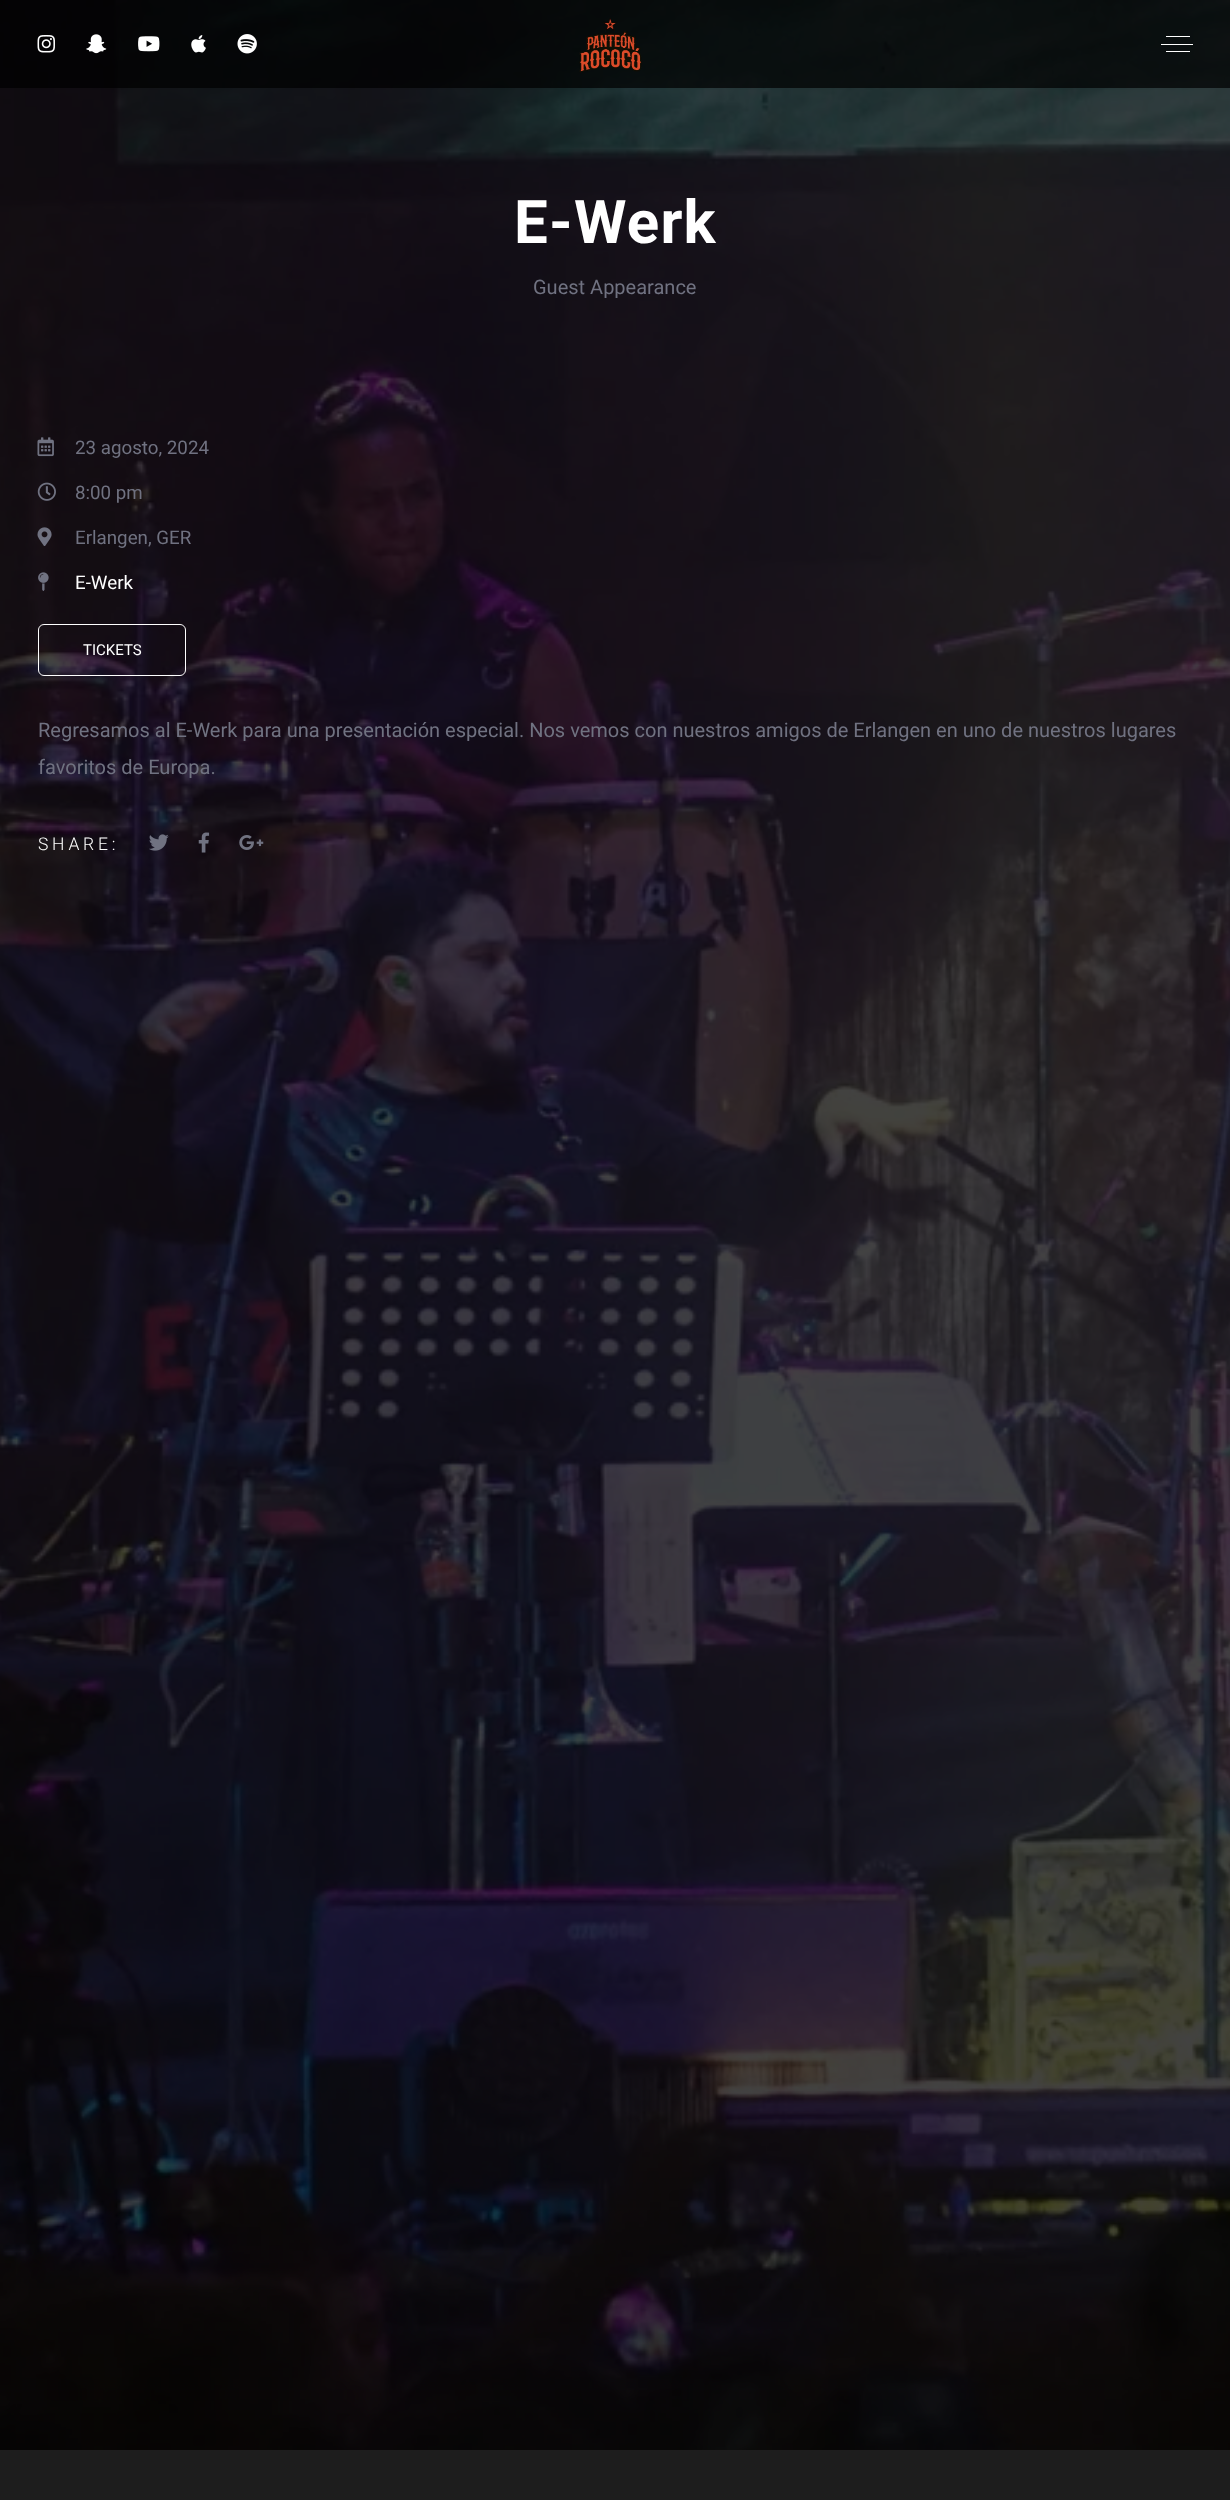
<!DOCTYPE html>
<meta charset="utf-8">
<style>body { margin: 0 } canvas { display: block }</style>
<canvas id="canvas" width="1230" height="2500"></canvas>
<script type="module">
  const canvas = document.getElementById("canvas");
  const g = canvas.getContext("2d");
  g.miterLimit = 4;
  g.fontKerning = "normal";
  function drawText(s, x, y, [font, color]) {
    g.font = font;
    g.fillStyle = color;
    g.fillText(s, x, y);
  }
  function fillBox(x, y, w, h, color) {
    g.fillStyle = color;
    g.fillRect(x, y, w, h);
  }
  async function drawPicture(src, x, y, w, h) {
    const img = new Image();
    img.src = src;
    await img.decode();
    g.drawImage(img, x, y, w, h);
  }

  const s1 = ["bold 60px Roboto", "#FFFFFF"];
  const s2 = ["20px Roboto", "#707281"];
  const s3 = ["18.75px Roboto", "#707281"];
  const s4 = ["18.75px Roboto", "#FFFFFF"];
  const s5 = ["15px Roboto", "#FFFFFF"];
  const s6 = ["300 17.5px Roboto", "#FFFFFF"];

  fillBox(0, 0, 1230, 2500, "#FFFFFF");
  await drawPicture("pic1.png", 0, 0, 1230, 2450);
  fillBox(0, 0, 1230, 88, "rgba(0, 0, 0, 0.7)");
  await drawPicture("pic2.png", 37, 35, 18, 18);
  await drawPicture("pic3.png", 86, 34, 21, 20);
  await drawPicture("pic4.png", 138, 36, 22, 16);
  await drawPicture("pic5.png", 191, 35, 15, 18);
  await drawPicture("pic6.png", 237, 34, 20, 20);
  await drawPicture("pic7.png", 579, 18, 63, 55);
  fillBox(1166, 36, 24, 1, "#FFFFFF");
  fillBox(1161, 44, 32, 1, "#FFFFFF");
  fillBox(1166, 51, 24, 1, "#FFFFFF");
  g.letterSpacing = "1.25px";
  drawText("E-Werk", 514, 243, s1);
  g.letterSpacing = "0px";
  drawText("Guest Appearance", 533, 294, s2);
  await drawPicture("pic8.png", 37, 437, 17, 20);
  drawText("23 agosto, 2024", 75, 454, s3);
  await drawPicture("pic9.png", 37, 482, 19, 19);
  drawText("8:00 pm", 75, 499, s3);
  await drawPicture("pic10.png", 37, 527, 15, 19);
  drawText("Erlangen, GER", 75, 544, s3);
  await drawPicture("pic11.png", 38, 572, 11, 19);
  drawText("E-Werk", 75, 589, s4);
  g.beginPath();
  g.roundRect(38.5, 624.5, 147, 51, 5.5);
  g.strokeStyle = "#FFFFFF";
  g.stroke();
  drawText("TICKETS", 83, 655, s5);
  drawText("Regresamos al E-Werk para una presentación especial. Nos vemos con nuestros amigos de Erlangen en uno de nuestros lugares", 38, 737, s2);
  drawText("favoritos de Europa.", 38, 774, s2);
  g.letterSpacing = "3.75px";
  drawText("SHARE:", 38, 850, s6);
  await drawPicture("pic12.png", 149, 834, 20, 17);
  await drawPicture("pic13.png", 198, 832, 12, 21);
  await drawPicture("pic14.png", 239, 835, 25, 15);
  fillBox(0, 2450, 1230, 50, "#1D1D1D");
</script>
